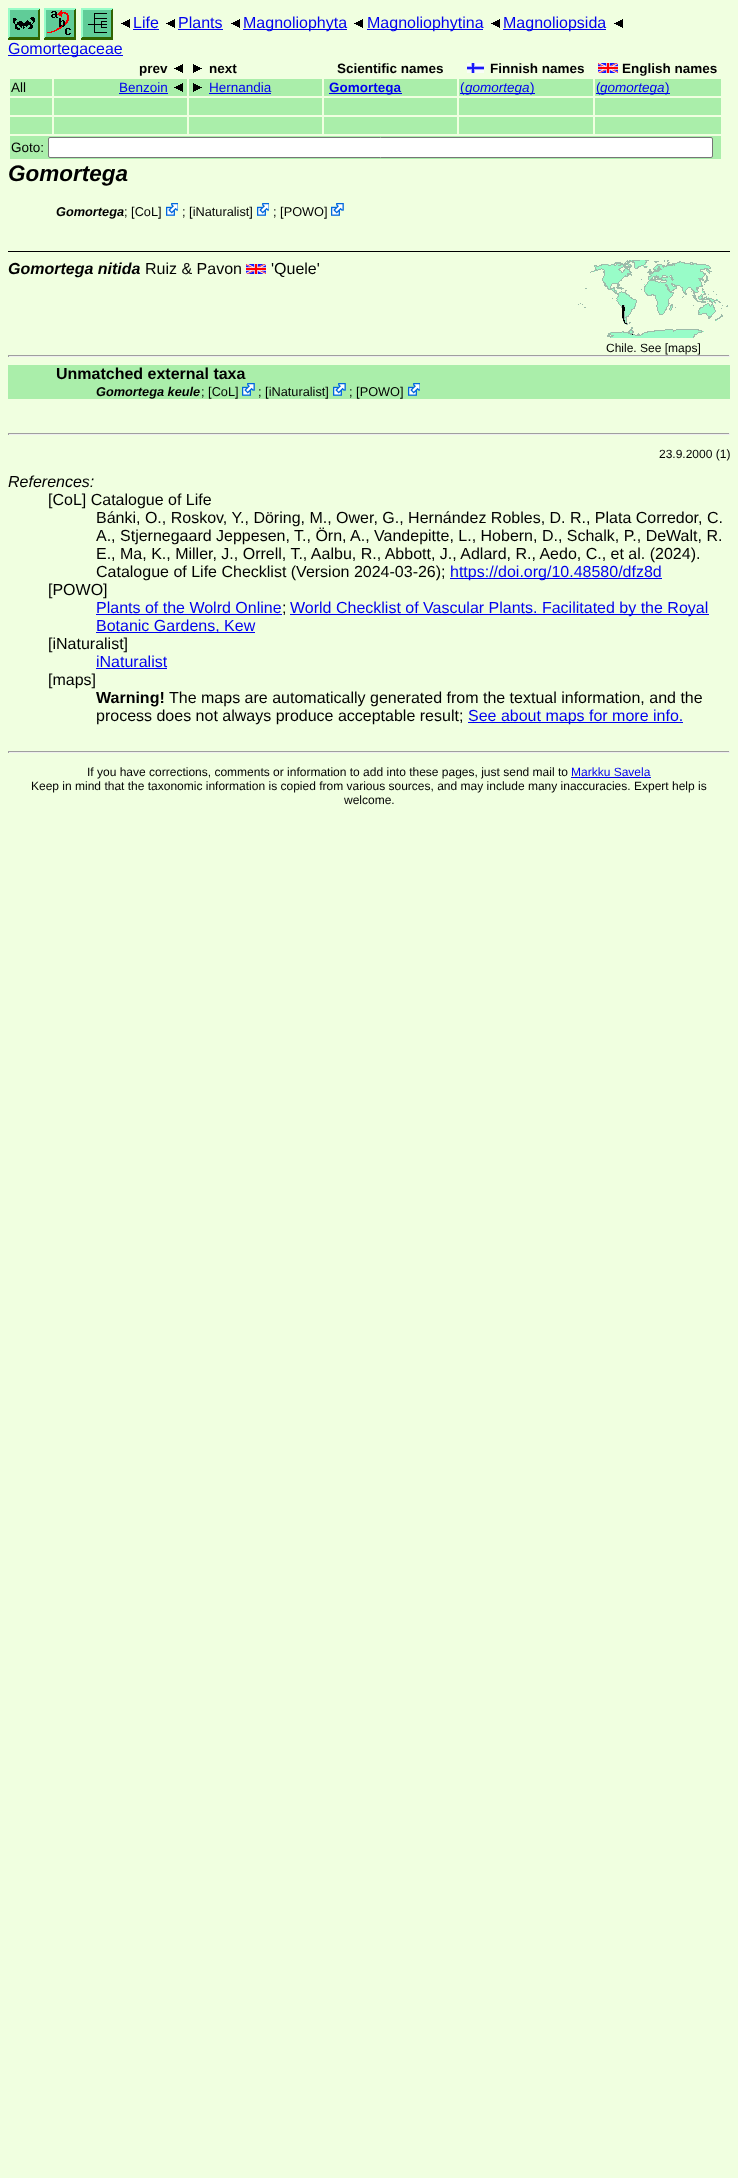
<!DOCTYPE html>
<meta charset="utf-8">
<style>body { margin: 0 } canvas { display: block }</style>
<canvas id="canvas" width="738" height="2178"></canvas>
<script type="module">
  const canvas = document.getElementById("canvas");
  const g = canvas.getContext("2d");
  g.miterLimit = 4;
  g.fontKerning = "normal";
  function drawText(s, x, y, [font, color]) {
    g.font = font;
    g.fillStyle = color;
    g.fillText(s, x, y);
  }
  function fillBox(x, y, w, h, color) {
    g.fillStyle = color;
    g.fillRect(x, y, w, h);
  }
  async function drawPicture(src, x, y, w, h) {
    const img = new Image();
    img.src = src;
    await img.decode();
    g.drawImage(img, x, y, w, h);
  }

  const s1 = ["16px Liberation Sans", "#0000EE"];
  const s2 = ["bold 13.5px Liberation Sans", "#000000"];
  const s3 = ["13.5px Liberation Sans", "#000000"];
  const s4 = ["13.5px Liberation Sans", "#0000EE"];
  const s5 = ["bold 13.5px Liberation Sans", "#0000EE"];
  const s6 = ["italic 13.5px Liberation Sans", "#0000EE"];
  const s7 = ["italic bold 22.5px Liberation Sans", "#000000"];
  const s8 = ["italic bold 12.75px Liberation Sans", "#000000"];
  const s9 = ["12.75px Liberation Sans", "#000000"];
  const s10 = ["italic bold 16px Liberation Sans", "#000000"];
  const s11 = ["16px Liberation Sans", "#000000"];
  const s12 = ["12px Liberation Sans", "#000000"];
  const s13 = ["bold 16px Liberation Sans", "#000000"];
  const s14 = ["italic 16px Liberation Sans", "#000000"];
  const s15 = ["12px Liberation Sans", "#0000EE"];

  fillBox(0, 0, 738, 2178, "#F0FFE0");
  await drawPicture("pic1.png", 8, 8, 32, 32);
  await drawPicture("pic2.png", 44, 8, 32, 32);
  await drawPicture("pic3.png", 81, 8, 32, 32);
  await drawPicture("pic4.png", 121, 19, 9, 9);
  drawText("Life", 133, 28, s1);
  fillBox(133, 29, 26, 1, "#0000EE");
  await drawPicture("pic4.png", 166, 19, 9, 9);
  drawText("Plants", 178, 28, s1);
  fillBox(178, 29, 45, 1, "#0000EE");
  await drawPicture("pic4.png", 231, 19, 9, 9);
  fillBox(243, 29, 104, 1, "#0000EE");
  drawText("Magnoliophyta", 243, 28, s1);
  await drawPicture("pic4.png", 354, 19, 9, 9);
  fillBox(367, 29, 116, 1, "#0000EE");
  drawText("Magnoliophytina", 367, 28, s1);
  await drawPicture("pic4.png", 491, 19, 9, 9);
  fillBox(503, 29, 103, 1, "#0000EE");
  drawText("Magnoliopsida", 503, 28, s1);
  await drawPicture("pic4.png", 614, 19, 9, 9);
  fillBox(8, 55, 115, 1, "#0000EE");
  drawText("Gomortegaceae", 8, 54, s1);
  drawText("prev", 139, 73, s2);
  await drawPicture("pic4.png", 174, 64, 9, 9);
  await drawPicture("pic5.png", 193, 64, 9, 9);
  drawText("next", 209, 73, s2);
  drawText("Scientific names", 337, 73, s2);
  await drawPicture("pic6.png", 467, 63, 17, 10);
  drawText("Finnish names", 490, 73, s2);
  await drawPicture("pic7.png", 598, 63, 20, 10);
  drawText("English names", 622, 73, s2);
  fillBox(10, 79, 42, 17, "#AAEEAA");
  drawText("All", 11, 92, s3);
  fillBox(54, 79, 133, 17, "#AAEEAA");
  drawText("Benzoin", 119, 92, s4);
  fillBox(119, 93, 49, 1, "#0000EE");
  await drawPicture("pic8.png", 174, 83, 9, 9);
  fillBox(189, 79, 133, 17, "#AAEEAA");
  await drawPicture("pic9.png", 193, 83, 9, 9);
  drawText("Hernandia", 209, 92, s4);
  fillBox(209, 93, 62, 1, "#0000EE");
  fillBox(324, 79, 133, 17, "#AAEEAA");
  fillBox(329, 93, 73, 1, "#0000EE");
  drawText("Gomortega", 329, 92, s5);
  fillBox(459, 79, 134, 17, "#AAEEAA");
  fillBox(460, 93, 75, 1, "#0000EE");
  drawText("(", 460, 92, s4);
  drawText("gomortega", 465, 92, s6);
  drawText(")", 530, 92, s4);
  fillBox(595, 79, 126, 17, "#AAEEAA");
  fillBox(596, 93, 74, 1, "#0000EE");
  drawText("(", 596, 92, s4);
  drawText("gomortega", 600, 92, s6);
  drawText(")", 665, 92, s4);
  fillBox(10, 98, 42, 17, "#AAEEAA");
  fillBox(54, 98, 133, 17, "#AAEEAA");
  fillBox(189, 98, 133, 17, "#AAEEAA");
  fillBox(324, 98, 133, 17, "#AAEEAA");
  fillBox(459, 98, 134, 17, "#AAEEAA");
  fillBox(595, 98, 126, 17, "#AAEEAA");
  fillBox(10, 117, 42, 17, "#AAEEAA");
  fillBox(54, 117, 133, 17, "#AAEEAA");
  fillBox(189, 117, 133, 17, "#AAEEAA");
  fillBox(324, 117, 133, 17, "#AAEEAA");
  fillBox(459, 117, 134, 17, "#AAEEAA");
  fillBox(595, 117, 126, 17, "#AAEEAA");
  fillBox(10, 136, 711, 23, "#AAEEAA");
  drawText("Goto:", 11, 152, s3);
  g.fillStyle = "#FFFFFF";
  g.beginPath();
  g.roundRect(48.5, 137.5, 664, 20, 1.5);
  g.fill();
  g.strokeStyle = "#767676";
  g.stroke();
  drawText("Gomortega", 8, 181, s7);
  drawText("Gomortega", 56, 216, s8);
  drawText("; [CoL]", 124, 216, s9);
  await drawPicture("pic10.png", 166, 203, 12, 13);
  drawText("; [iNaturalist]", 182, 216, s9);
  await drawPicture("pic10.png", 257, 203, 12, 13);
  drawText("; [POWO]", 273, 216, s9);
  await drawPicture("pic11.png", 331, 203, 13, 13);
  fillBox(8, 251, 722, 1, "#000000");
  drawText("Gomortega nitida", 8, 274, s10);
  drawText("Ruiz & Pavon", 145, 274, s11);
  await drawPicture("pic7.png", 246, 264, 20, 10);
  drawText("'Quele'", 271, 274, s11);
  await drawPicture("pic12.png", 578, 260, 150, 78);
  drawText("Chile. See [maps]", 606, 352, s12);
  fillBox(8, 355, 722, 1, "#9F9F9F");
  fillBox(729, 355, 1, 2, "#EEEEEE");
  fillBox(8, 356, 722, 1, "#EEEEEE");
  fillBox(8, 355, 1, 2, "#9F9F9F");
  fillBox(8, 365, 722, 34, "#AAEEAA");
  drawText("Unmatched external taxa", 56, 379, s13);
  drawText("Gomortega keule", 96, 396, s8);
  drawText("; [CoL]", 201, 396, s9);
  await drawPicture("pic13.png", 242, 383, 13, 13);
  drawText("; [iNaturalist]", 258, 396, s9);
  await drawPicture("pic13.png", 333, 383, 13, 13);
  drawText("; [POWO]", 349, 396, s9);
  await drawPicture("pic14.png", 408, 383, 12, 13);
  fillBox(8, 433, 722, 1, "#9F9F9F");
  fillBox(729, 433, 1, 2, "#EEEEEE");
  fillBox(8, 434, 722, 1, "#EEEEEE");
  fillBox(8, 433, 1, 2, "#9F9F9F");
  drawText("23.9.2000 (1)", 659, 458, s12);
  drawText("References:", 8, 487, s14);
  drawText("[CoL] Catalogue of Life", 48, 505, s11);
  drawText("Bánki, O., Roskov, Y., Döring, M., Ower, G., Hernández Robles, D. R., Plata Corredor, C.", 96, 523, s11);
  drawText("A., Stjernegaard Jeppesen, T., Örn, A., Vandepitte, L., Hobern, D., Schalk, P., DeWalt, R.", 96, 541, s11);
  drawText("E., Ma, K., Miller, J., Orrell, T., Aalbu, R., Abbott, J., Adlard, R., Aedo, C., et al. (2024).", 96, 559, s11);
  drawText("Catalogue of Life Checklist (Version 2024-03-26);", 96, 577, s11);
  fillBox(450, 578, 212, 1, "#0000EE");
  drawText("https://doi.org/10.48580/dfz8d", 450, 577, s1);
  drawText("[POWO]", 48, 595, s11);
  drawText("Plants of the Wolrd Online", 96, 613, s1);
  fillBox(96, 614, 186, 1, "#0000EE");
  drawText(";", 282, 613, s11);
  fillBox(290, 614, 419, 1, "#0000EE");
  drawText("World Checklist of Vascular Plants. Facilitated by the Royal", 290, 613, s1);
  fillBox(96, 632, 159, 1, "#0000EE");
  drawText("Botanic Gardens, Kew", 96, 631, s1);
  drawText("[iNaturalist]", 48, 649, s11);
  drawText("iNaturalist", 96, 667, s1);
  fillBox(96, 668, 71, 1, "#0000EE");
  drawText("[maps]", 48, 685, s11);
  drawText("Warning!", 96, 703, s13);
  drawText("The maps are automatically generated from the textual information, and the", 169, 703, s11);
  drawText("process does not always produce acceptable result;", 96, 721, s11);
  fillBox(468, 722, 215, 1, "#0000EE");
  drawText("See about maps for more info.", 468, 721, s1);
  fillBox(8, 751, 722, 1, "#9F9F9F");
  fillBox(729, 751, 1, 2, "#EEEEEE");
  fillBox(8, 752, 722, 1, "#EEEEEE");
  fillBox(8, 751, 1, 2, "#9F9F9F");
  drawText("If you have corrections, comments or information to add into these pages, just send mail to", 87, 776, s12);
  drawText("Markku Savela", 571, 776, s15);
  fillBox(571, 777, 80, 1, "#0000EE");
  drawText("Keep in mind that the taxonomic information is copied from various sources, and may include many inaccuracies. Expert help is", 31, 790, s12);
  drawText("welcome.", 344, 804, s12);
</script>
